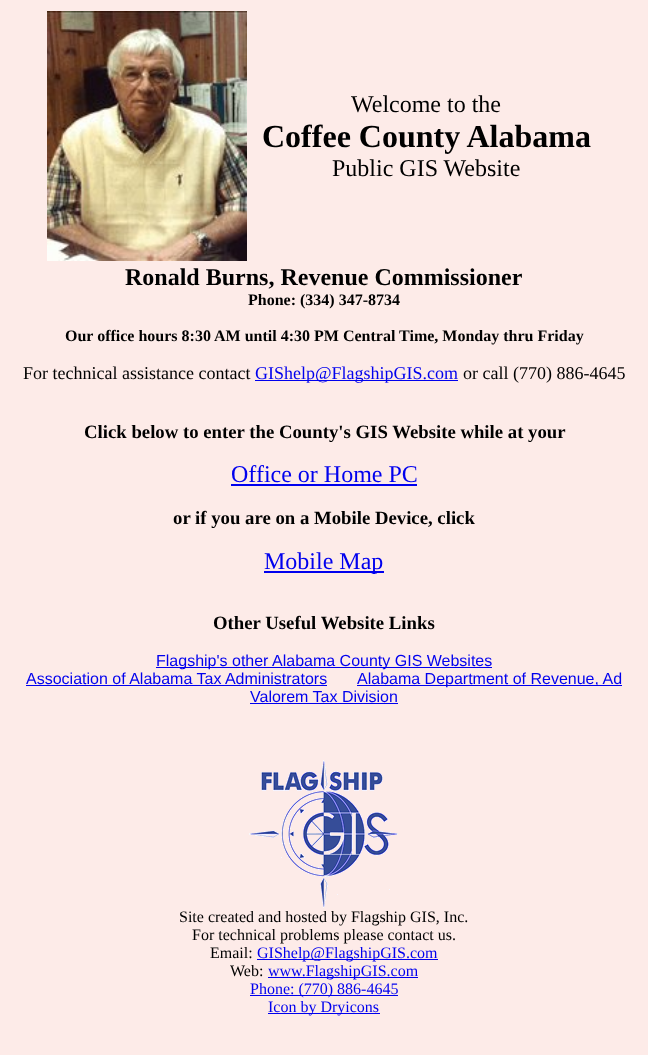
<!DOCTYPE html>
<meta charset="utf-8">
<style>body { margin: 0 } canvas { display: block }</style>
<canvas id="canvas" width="648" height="1055"></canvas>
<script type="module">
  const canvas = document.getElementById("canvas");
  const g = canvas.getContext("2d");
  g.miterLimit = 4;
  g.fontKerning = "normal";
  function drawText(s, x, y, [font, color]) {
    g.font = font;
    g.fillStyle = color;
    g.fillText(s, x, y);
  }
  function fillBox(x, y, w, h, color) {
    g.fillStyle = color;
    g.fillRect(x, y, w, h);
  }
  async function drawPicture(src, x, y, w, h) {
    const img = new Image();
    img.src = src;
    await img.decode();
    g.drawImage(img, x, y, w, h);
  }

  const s1 = ["24px Liberation Serif", "#000000"];
  const s2 = ["bold 32px Liberation Serif", "#000000"];
  const s3 = ["bold 24px Liberation Serif", "#000000"];
  const s4 = ["bold 16px Liberation Serif", "#000000"];
  const s5 = ["18px Liberation Serif", "#000000"];
  const s6 = ["18px Liberation Serif", "#0000EE"];
  const s7 = ["bold 18.75px Liberation Serif", "#000000"];
  const s8 = ["24px Liberation Serif", "#0000EE"];
  const s9 = ["16px Liberation Sans", "#0000EE"];
  const s10 = ["16px Liberation Serif", "#000000"];
  const s11 = ["16px Liberation Serif", "#0000EE"];

  fillBox(0, 0, 648, 1055, "#FDEBE8");
  await drawPicture("pic1.png", 47, 11, 200, 250);
  drawText("Welcome to the", 351, 112, s1);
  drawText("Coffee County Alabama", 262, 147, s2);
  drawText("Public GIS Website", 332, 176, s1);
  drawText("Ronald Burns, Revenue Commissioner", 125, 285, s3);
  drawText("Phone: (334) 347-8734", 248, 305, s4);
  drawText("Our office hours 8:30 AM until 4:30 PM Central Time, Monday thru Friday", 65, 341, s4);
  drawText("For technical assistance contact", 23, 379, s5);
  fillBox(255, 380, 203, 1, "#0000EE");
  drawText("GIShelp@FlagshipGIS.com", 255, 379, s6);
  drawText("or call (770) 886-4645", 463, 379, s5);
  drawText("Click below to enter the County's GIS Website while at your", 84, 438, s7);
  drawText("Office or Home PC", 231, 482, s8);
  fillBox(231, 484, 186, 2, "#0000EE");
  drawText("or if you are on a Mobile Device, click", 173, 524, s7);
  fillBox(264, 571, 120, 2, "#0000EE");
  drawText("Mobile Map", 264, 569, s8);
  drawText("Other Useful Website Links", 213, 629, s7);
  fillBox(156, 667, 336, 1, "#0000EE");
  drawText("Flagship's other Alabama County GIS Websites", 156, 666, s9);
  drawText("Association of Alabama Tax Administrators", 26, 684, s9);
  fillBox(26, 685, 301, 1, "#0000EE");
  fillBox(357, 685, 265, 1, "#0000EE");
  drawText("Alabama Department of Revenue, Ad", 357, 684, s9);
  drawText("Valorem Tax Division", 250, 702, s9);
  fillBox(250, 703, 148, 1, "#0000EE");
  await drawPicture("pic2.png", 249, 760, 149, 148);
  drawText("Site created and hosted by Flagship GIS, Inc.", 179, 922, s10);
  drawText("For technical problems please contact us.", 192, 940, s10);
  drawText("Email:", 210, 958, s10);
  fillBox(257, 959, 181, 1, "#0000EE");
  drawText("GIShelp@FlagshipGIS.com", 257, 958, s11);
  drawText("Web:", 230, 976, s10);
  fillBox(268, 977, 150, 1, "#0000EE");
  drawText("www.FlagshipGIS.com", 268, 976, s11);
  fillBox(250, 995, 148, 1, "#0000EE");
  drawText("Phone: (770) 886-4645", 250, 994, s11);
  fillBox(268, 1013, 112, 1, "#0000EE");
  drawText("Icon by Dryicons", 268, 1012, s11);
</script>
